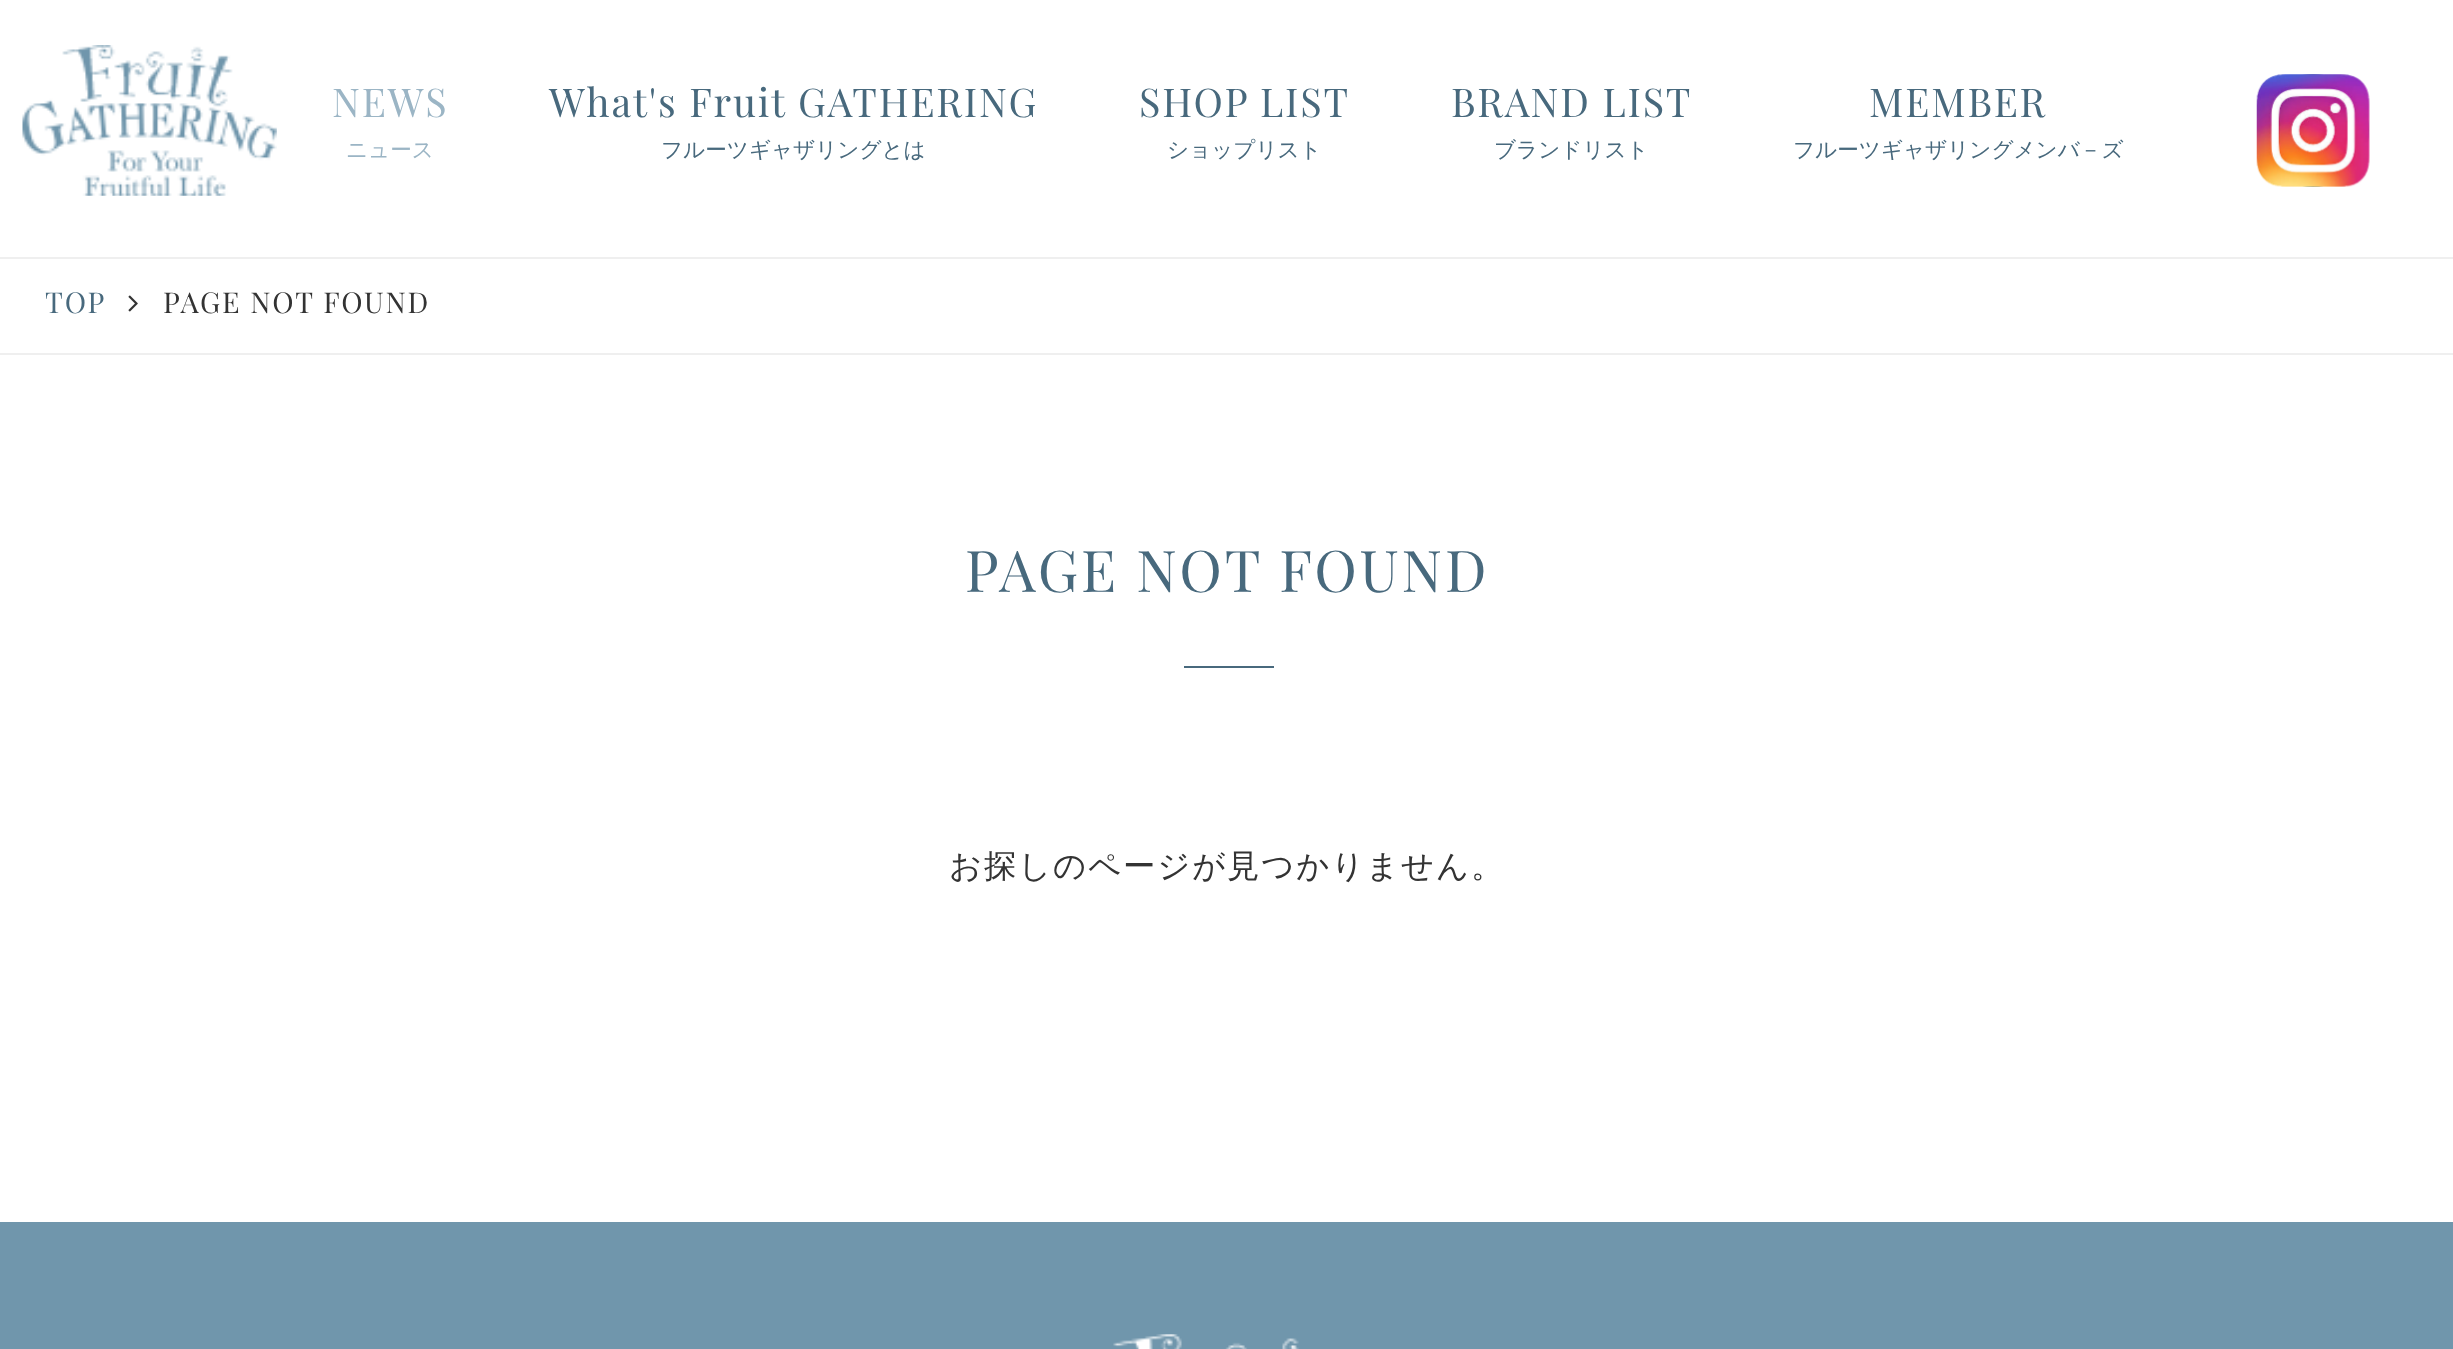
<!DOCTYPE html>
<meta charset="utf-8">
<style>body { margin: 0 } canvas { display: block }</style>
<canvas id="canvas" width="2453" height="1349"></canvas>
<script type="module">
  const canvas = document.getElementById("canvas");
  const g = canvas.getContext("2d");
  g.miterLimit = 4;
  g.fontKerning = "normal";
  function drawText(s, x, y, [font, color]) {
    g.font = font;
    g.fillStyle = color;
    g.fillText(s, x, y);
  }
  function fillBox(x, y, w, h, color) {
    g.fillStyle = color;
    g.fillRect(x, y, w, h);
  }
  function fillRounded(x, y, w, h, r, color) {
    g.fillStyle = color;
    g.beginPath();
    g.roundRect(x, y, w, h, r);
    g.fill();
  }
  async function drawPicture(src, x, y, w, h) {
    const img = new Image();
    img.src = src;
    await img.decode();
    g.drawImage(img, x, y, w, h);
  }

  const s1 = ["39.6px Playfair Display", "#9BB5C5"];
  const s2 = ["500 21.6px WenQuanYi Zen Hei", "#9BB5C5"];
  const s3 = ["39.6px Playfair Display", "#48697D"];
  const s4 = ["500 21.6px WenQuanYi Zen Hei", "#48697D"];
  const s5 = ["28.75px Playfair Display", "#48697D"];
  const s6 = ["28.75px Playfair Display", "#333333"];
  const s7 = ["57.5px Playfair Display", "#48697D"];
  const s8 = ["500 32.4px WenQuanYi Zen Hei", "#333333"];

  fillBox(0, 0, 2453, 1349, "#FFFFFF");
  await drawPicture("pic1.png", 22, 45, 255, 151);
  g.letterSpacing = "1.8px";
  drawText("NEWS", 332, 117, s1);
  g.letterSpacing = "0px";
  drawText("ニュース", 346, 157, s2);
  g.letterSpacing = "1.8px";
  drawText("What's Fruit GATHERING", 549, 117, s3);
  g.letterSpacing = "0px";
  drawText("フルーツギャザリングとは", 661, 157, s4);
  g.letterSpacing = "1.8px";
  drawText("SHOP LIST", 1139, 117, s3);
  g.letterSpacing = "0px";
  drawText("ショップリスト", 1167, 157, s4);
  g.letterSpacing = "1.8px";
  drawText("BRAND LIST", 1451, 117, s3);
  g.letterSpacing = "0px";
  drawText("ブランドリスト", 1494, 157, s4);
  g.letterSpacing = "1.8px";
  drawText("MEMBER", 1869, 117, s3);
  g.letterSpacing = "0px";
  drawText("フルーツギャザリングメンバ－ズ", 1793, 157, s4);
  fillRounded(2257, 74, 112, 113, 56, "#7096AC");
  await drawPicture("pic2.png", 2256, 74, 114, 113);
  fillBox(0, 257, 2453, 2, "#EFEFEF");
  fillBox(0, 353, 2453, 2, "#EFEFEF");
  g.letterSpacing = "1.8px";
  drawText("TOP", 45, 313, s5);
  await drawPicture("pic3.png", 128, 295, 10, 17);
  drawText("PAGE NOT FOUND", 163, 313, s6);
  g.letterSpacing = "2.9px";
  drawText("PAGE NOT FOUND", 965, 592, s7);
  fillBox(1184, 666, 90, 2, "#48697D");
  g.letterSpacing = "1.8px";
  drawText("お探しのページが見つかりません。", 949, 877, s8);
  fillBox(0, 1222, 2453, 127, "#7096AC");
  await drawPicture("pic4.png", 1113, 1334, 186, 15);
</script>
